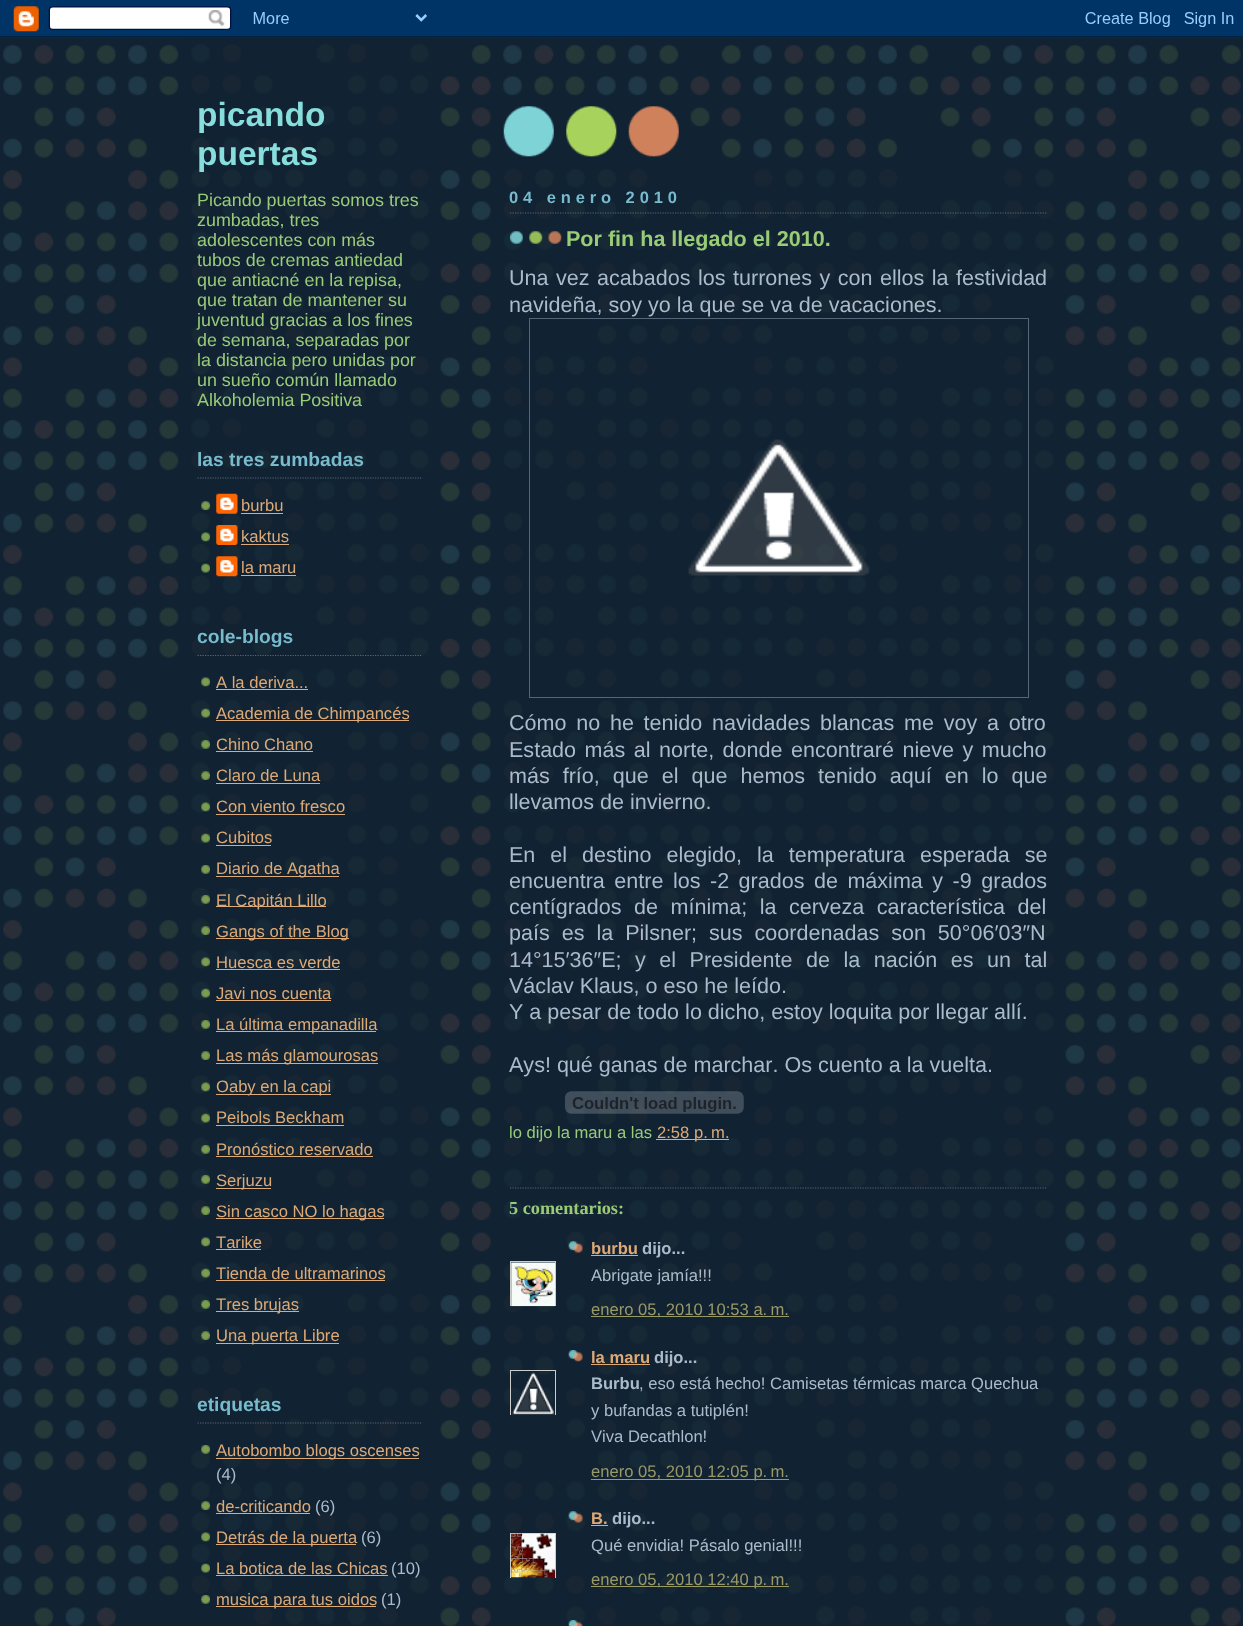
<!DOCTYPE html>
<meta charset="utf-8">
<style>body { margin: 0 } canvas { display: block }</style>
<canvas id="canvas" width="1243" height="1626"></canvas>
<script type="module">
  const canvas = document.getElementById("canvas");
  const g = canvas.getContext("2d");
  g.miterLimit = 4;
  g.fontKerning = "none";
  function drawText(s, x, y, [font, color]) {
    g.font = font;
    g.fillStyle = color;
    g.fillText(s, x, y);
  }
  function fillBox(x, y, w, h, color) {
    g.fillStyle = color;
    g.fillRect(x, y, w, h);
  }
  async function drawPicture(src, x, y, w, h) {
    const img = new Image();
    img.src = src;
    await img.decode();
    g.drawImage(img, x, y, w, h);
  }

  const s1 = ["bold 33.5px Liberation Sans", "#88DDDD"];
  const s2 = ["17.9px Liberation Sans", "#99CC77"];
  const s3 = ["bold 19.25px Liberation Sans", "#77BBCC"];
  const s4 = ["16.6px Liberation Sans", "#DDAA77"];
  const s5 = ["16.6px Liberation Sans", "#AABBCC"];
  const s6 = ["bold 16.5px Liberation Sans", "#77BBCC"];
  const s7 = ["bold 21.55px Liberation Sans", "#99CC77"];
  const s8 = ["21.55px Liberation Sans", "#AABBCC"];
  const s9 = ["16.6px Liberation Sans", "#99CC77"];
  const s10 = ["bold 18.25px Liberation Serif", "#99CC77"];
  const s11 = ["bold 16.6px Liberation Sans", "#DDAA77"];
  const s12 = ["bold 16.6px Liberation Sans", "#AABBCC"];
  const s13 = ["16.6px Liberation Sans", "#999966"];

  fillBox(0, 0, 1243, 1626, "#112233");
  await drawPicture("pic1.png", 3, 36, 1238, 1590);
  await drawPicture("pic2.png", 0, 0, 1243, 38);
  await drawPicture("pic3.png", 503, 106, 176, 52);
  await drawPicture("pic4.png", 185, 37, 250, 1589);
  drawText("picando", 197, 126, s1);
  drawText("puertas", 197, 165, s1);
  drawText("Picando puertas somos tres", 197, 206, s2);
  drawText("zumbadas, tres", 197, 226, s2);
  drawText("adolescentes con más", 197, 246, s2);
  drawText("tubos de cremas antiedad", 197, 266, s2);
  drawText("que antiacné en la repisa,", 197, 286, s2);
  drawText("que tratan de mantener su", 197, 306, s2);
  drawText("juventud gracias a los fines", 197, 326, s2);
  drawText("de semana, separadas por", 197, 346, s2);
  drawText("la distancia pero unidas por", 197, 366, s2);
  drawText("un sueño común llamado", 197, 386, s2);
  drawText("Alkoholemia Positiva", 197, 406, s2);
  g.beginPath();
  g.moveTo(197.5, 478);
  g.lineTo(422.5, 478);
  g.strokeStyle = "#556677";
  g.lineWidth = 1.2;
  g.setLineDash([1.25, 1.25]);
  g.stroke();
  drawText("las tres zumbadas", 197, 466, s3);
  await drawPicture("pic5.png", 201, 501, 9, 9);
  await drawPicture("pic6.png", 216, 493, 22, 21);
  drawText("burbu", 241, 511, s4);
  fillBox(241, 513, 42, 1, "#DDAA77");
  await drawPicture("pic7.png", 201, 532, 9, 10);
  await drawPicture("pic8.png", 216, 525, 22, 20);
  drawText("kaktus", 241, 542, s4);
  fillBox(241, 544, 48, 1, "#DDAA77");
  await drawPicture("pic9.png", 201, 563, 9, 10);
  await drawPicture("pic10.png", 216, 556, 22, 21);
  drawText("la maru", 241, 573, s4);
  fillBox(241, 575, 55, 1, "#DDAA77");
  g.beginPath();
  g.moveTo(197.5, 655.5);
  g.lineTo(422.5, 655.5);
  g.stroke();
  drawText("cole-blogs", 197, 643, s3);
  await drawPicture("pic7.png", 201, 677, 9, 10);
  drawText("A la deriva...", 216, 688, s4);
  fillBox(216, 689, 92, 1, "#DDAA77");
  await drawPicture("pic11.png", 201, 708, 9, 10);
  fillBox(216, 720, 193, 1, "#DDAA77");
  drawText("Academia de Chimpancés", 216, 719, s4);
  await drawPicture("pic12.png", 201, 740, 9, 9);
  drawText("Chino Chano", 216, 750, s4);
  fillBox(216, 751, 97, 1, "#DDAA77");
  await drawPicture("pic13.png", 201, 771, 9, 9);
  drawText("Claro de Luna", 216, 781, s4);
  fillBox(216, 783, 104, 1, "#DDAA77");
  await drawPicture("pic14.png", 201, 802, 9, 10);
  drawText("Con viento fresco", 216, 812, s4);
  fillBox(216, 814, 129, 1, "#DDAA77");
  await drawPicture("pic15.png", 201, 833, 9, 10);
  drawText("Cubitos", 216, 843, s4);
  fillBox(216, 845, 55, 1, "#DDAA77");
  await drawPicture("pic16.png", 201, 865, 9, 9);
  fillBox(216, 876, 123, 1, "#DDAA77");
  drawText("Diario de Agatha", 216, 874, s4);
  await drawPicture("pic17.png", 201, 895, 9, 9);
  fillBox(216, 906, 110, 1, "#DDAA77");
  drawText("El Capitán Lillo", 216, 906, s4);
  await drawPicture("pic18.png", 201, 926, 9, 9);
  fillBox(216, 938, 133, 1, "#DDAA77");
  drawText("Gangs of the Blog", 216, 937, s4);
  await drawPicture("pic19.png", 201, 957, 9, 10);
  drawText("Huesca es verde", 216, 968, s4);
  fillBox(216, 969, 124, 1, "#DDAA77");
  await drawPicture("pic20.png", 201, 988, 9, 10);
  drawText("Javi nos cuenta", 216, 999, s4);
  fillBox(216, 1000, 115, 1, "#DDAA77");
  await drawPicture("pic21.png", 201, 1020, 9, 9);
  fillBox(216, 1031, 160, 1, "#DDAA77");
  drawText("La última empanadilla", 216, 1030, s4);
  await drawPicture("pic5.png", 201, 1051, 9, 9);
  fillBox(216, 1063, 162, 1, "#DDAA77");
  drawText("Las más glamourosas", 216, 1061, s4);
  await drawPicture("pic19.png", 201, 1082, 9, 10);
  fillBox(216, 1094, 115, 1, "#DDAA77");
  drawText("Oaby en la capi", 216, 1092, s4);
  await drawPicture("pic22.png", 201, 1113, 9, 10);
  drawText("Peibols Beckham", 216, 1123, s4);
  fillBox(216, 1125, 128, 1, "#DDAA77");
  await drawPicture("pic17.png", 201, 1145, 9, 9);
  drawText("Pronóstico reservado", 216, 1155, s4);
  fillBox(216, 1156, 157, 1, "#DDAA77");
  await drawPicture("pic23.png", 201, 1175, 9, 9);
  fillBox(216, 1188, 55, 1, "#DDAA77");
  drawText("Serjuzu", 216, 1186, s4);
  await drawPicture("pic24.png", 201, 1206, 9, 9);
  fillBox(216, 1218, 168, 1, "#DDAA77");
  drawText("Sin casco NO lo hagas", 216, 1217, s4);
  await drawPicture("pic7.png", 201, 1237, 9, 10);
  drawText("Tarike", 216, 1248, s4);
  fillBox(216, 1249, 45, 1, "#DDAA77");
  await drawPicture("pic25.png", 201, 1268, 9, 10);
  drawText("Tienda de ultramarinos", 216, 1279, s4);
  fillBox(216, 1280, 169, 1, "#DDAA77");
  await drawPicture("pic26.png", 201, 1300, 9, 9);
  fillBox(216, 1311, 83, 1, "#DDAA77");
  drawText("Tres brujas", 216, 1310, s4);
  await drawPicture("pic27.png", 201, 1331, 9, 9);
  fillBox(216, 1343, 123, 1, "#DDAA77");
  drawText("Una puerta Libre", 216, 1341, s4);
  g.beginPath();
  g.moveTo(197.5, 1423);
  g.lineTo(422.5, 1423);
  g.stroke();
  drawText("etiquetas", 197, 1411, s3);
  await drawPicture("pic28.png", 201, 1445, 9, 9);
  fillBox(216, 1458, 203, 1, "#DDAA77");
  drawText("Autobombo blogs oscenses", 216, 1456, s4);
  drawText("(4)", 216, 1480, s5);
  await drawPicture("pic5.png", 201, 1501, 9, 9);
  drawText("de-criticando", 216, 1512, s4);
  fillBox(216, 1513, 94, 1, "#DDAA77");
  drawText("(6)", 315, 1512, s5);
  await drawPicture("pic7.png", 201, 1532, 9, 10);
  fillBox(216, 1544, 140, 1, "#DDAA77");
  drawText("Detrás de la puerta", 216, 1543, s4);
  drawText("(6)", 361, 1543, s5);
  await drawPicture("pic29.png", 201, 1563, 9, 10);
  drawText("La botica de las Chicas", 216, 1574, s4);
  fillBox(216, 1575, 172, 1, "#DDAA77");
  drawText("(10)", 391, 1574, s5);
  await drawPicture("pic16.png", 201, 1595, 9, 9);
  fillBox(216, 1606, 160, 1, "#DDAA77");
  drawText("musica para tus oidos", 216, 1605, s4);
  drawText("(1)", 381, 1605, s5);
  await drawPicture("pic30.png", 503, 169, 551, 1457);
  g.beginPath();
  g.moveTo(510, 213);
  g.lineTo(1047.5, 213);
  g.stroke();
  g.letterSpacing = "4.9px";
  drawText("04 enero 2010", 509, 203, s6);
  await drawPicture("pic31.png", 510, 231, 52, 13);
  g.letterSpacing = "0px";
  drawText("Por fin ha llegado el 2010.", 566, 246, s7);
  g.wordSpacing = "1.5px";
  drawText("Una vez acabados los turrones y con ellos la festividad", 509, 285, s8);
  g.wordSpacing = "0px";
  drawText("navideña, soy yo la que se va de vacaciones.", 509, 312, s8);
  g.lineWidth = 1;
  g.setLineDash([]);
  g.strokeRect(529.5, 318.5, 499, 379);
  await drawPicture("pic32.png", 688, 439, 182, 137);
  g.wordSpacing = "3.75px";
  drawText("Cómo no he tenido navidades blancas me voy a otro", 509, 730, s8);
  g.wordSpacing = "2.5px";
  drawText("Estado más al norte, donde encontraré nieve y mucho", 509, 757, s8);
  g.wordSpacing = "7px";
  drawText("más frío, que el que hemos tenido aquí en lo que", 509, 783, s8);
  g.wordSpacing = "0px";
  drawText("llevamos de invierno.", 509, 809, s8);
  g.wordSpacing = "9px";
  drawText("En el destino elegido, la temperatura esperada se", 509, 862, s8);
  g.wordSpacing = "3.5px";
  drawText("encuentra entre los -2 grados de máxima y -9 grados", 509, 888, s8);
  g.wordSpacing = "6.5px";
  drawText("centígrados de mínima; la cerveza característica del", 509, 914, s8);
  g.wordSpacing = "6px";
  drawText("país es la Pilsner; sus coordenadas son 50°06′03″N", 509, 940, s8);
  g.wordSpacing = "7.5px";
  drawText("14°15′36″E; y el Presidente de la nación es un tal", 509, 967, s8);
  g.wordSpacing = "0px";
  drawText("Václav Klaus, o eso he leído.", 509, 993, s8);
  drawText("Y a pesar de todo lo dicho, estoy loquita por llegar allí.", 509, 1019, s8);
  drawText("Ays! qué ganas de marchar. Os cuento a la vuelta.", 509, 1072, s8);
  await drawPicture("pic33.png", 565, 1091, 179, 23);
  drawText("lo dijo la maru a las", 509, 1138, s9);
  fillBox(656, 1139, 73, 1, "#DDAA77");
  drawText("2:58 p. m.", 657, 1138, s4);
  g.beginPath();
  g.moveTo(510, 1188);
  g.lineTo(1047.5, 1188);
  g.lineWidth = 1.2;
  g.setLineDash([1.25, 1.25]);
  g.stroke();
  drawText("5 comentarios:", 509, 1214, s10);
  await drawPicture("pic34.png", 568, 1241, 15, 12);
  drawText("burbu", 591, 1254, s11);
  fillBox(591, 1255, 47, 1, "#DDAA77");
  drawText("dijo...", 642, 1254, s12);
  g.save();
  g.beginPath();
  g.rect(510, 1261, 46, 45);
  g.clip();
  g.strokeStyle = "#CCCCCC";
  g.lineWidth = 1;
  g.setLineDash([]);
  g.strokeRect(510.5, 1261.5, 45, 46);
  g.restore();
  await drawPicture("pic35.png", 511, 1262, 44, 45);
  drawText("Abrigate jamía!!!", 591, 1281, s5);
  fillBox(591, 1316, 198, 1, "#999966");
  drawText("enero 05, 2010 10:53 a. m.", 591, 1315, s13);
  await drawPicture("pic36.png", 568, 1350, 15, 12);
  drawText("la maru", 591, 1363, s11);
  fillBox(591, 1364, 59, 1, "#DDAA77");
  drawText("dijo...", 654, 1363, s12);
  g.save();
  g.beginPath();
  g.rect(510, 1370, 46, 45);
  g.clip();
  g.strokeStyle = "#CCCCCC";
  g.lineWidth = 1;
  g.setLineDash([]);
  g.strokeRect(510.5, 1370.5, 45, 45);
  g.restore();
  await drawPicture("pic37.png", 512, 1372, 43, 43);
  drawText("Burbu", 591, 1389, s12);
  drawText(", eso está hecho! Camisetas térmicas marca Quechua", 639, 1389, s5);
  drawText("y bufandas a tutiplén!", 591, 1416, s5);
  drawText("Viva Decathlon!", 591, 1442, s5);
  fillBox(591, 1479, 198, 1, "#999966");
  drawText("enero 05, 2010 12:05 p. m.", 591, 1477, s13);
  await drawPicture("pic38.png", 568, 1511, 15, 12);
  drawText("B.", 591, 1524, s11);
  fillBox(591, 1525, 17, 1, "#DDAA77");
  drawText("dijo...", 612, 1524, s12);
  g.save();
  g.beginPath();
  g.rect(510, 1533, 46, 45);
  g.clip();
  g.strokeStyle = "#CCCCCC";
  g.lineWidth = 1;
  g.setLineDash([]);
  g.strokeRect(510.5, 1533.5, 45, 45);
  g.restore();
  await drawPicture("pic39.png", 511, 1533, 44, 45);
  drawText("Qué envidia! Pásalo genial!!!", 591, 1551, s5);
  fillBox(591, 1586, 198, 1, "#999966");
  drawText("enero 05, 2010 12:40 p. m.", 591, 1585, s13);
  await drawPicture("pic40.png", 568, 1620, 15, 6);
</script>
